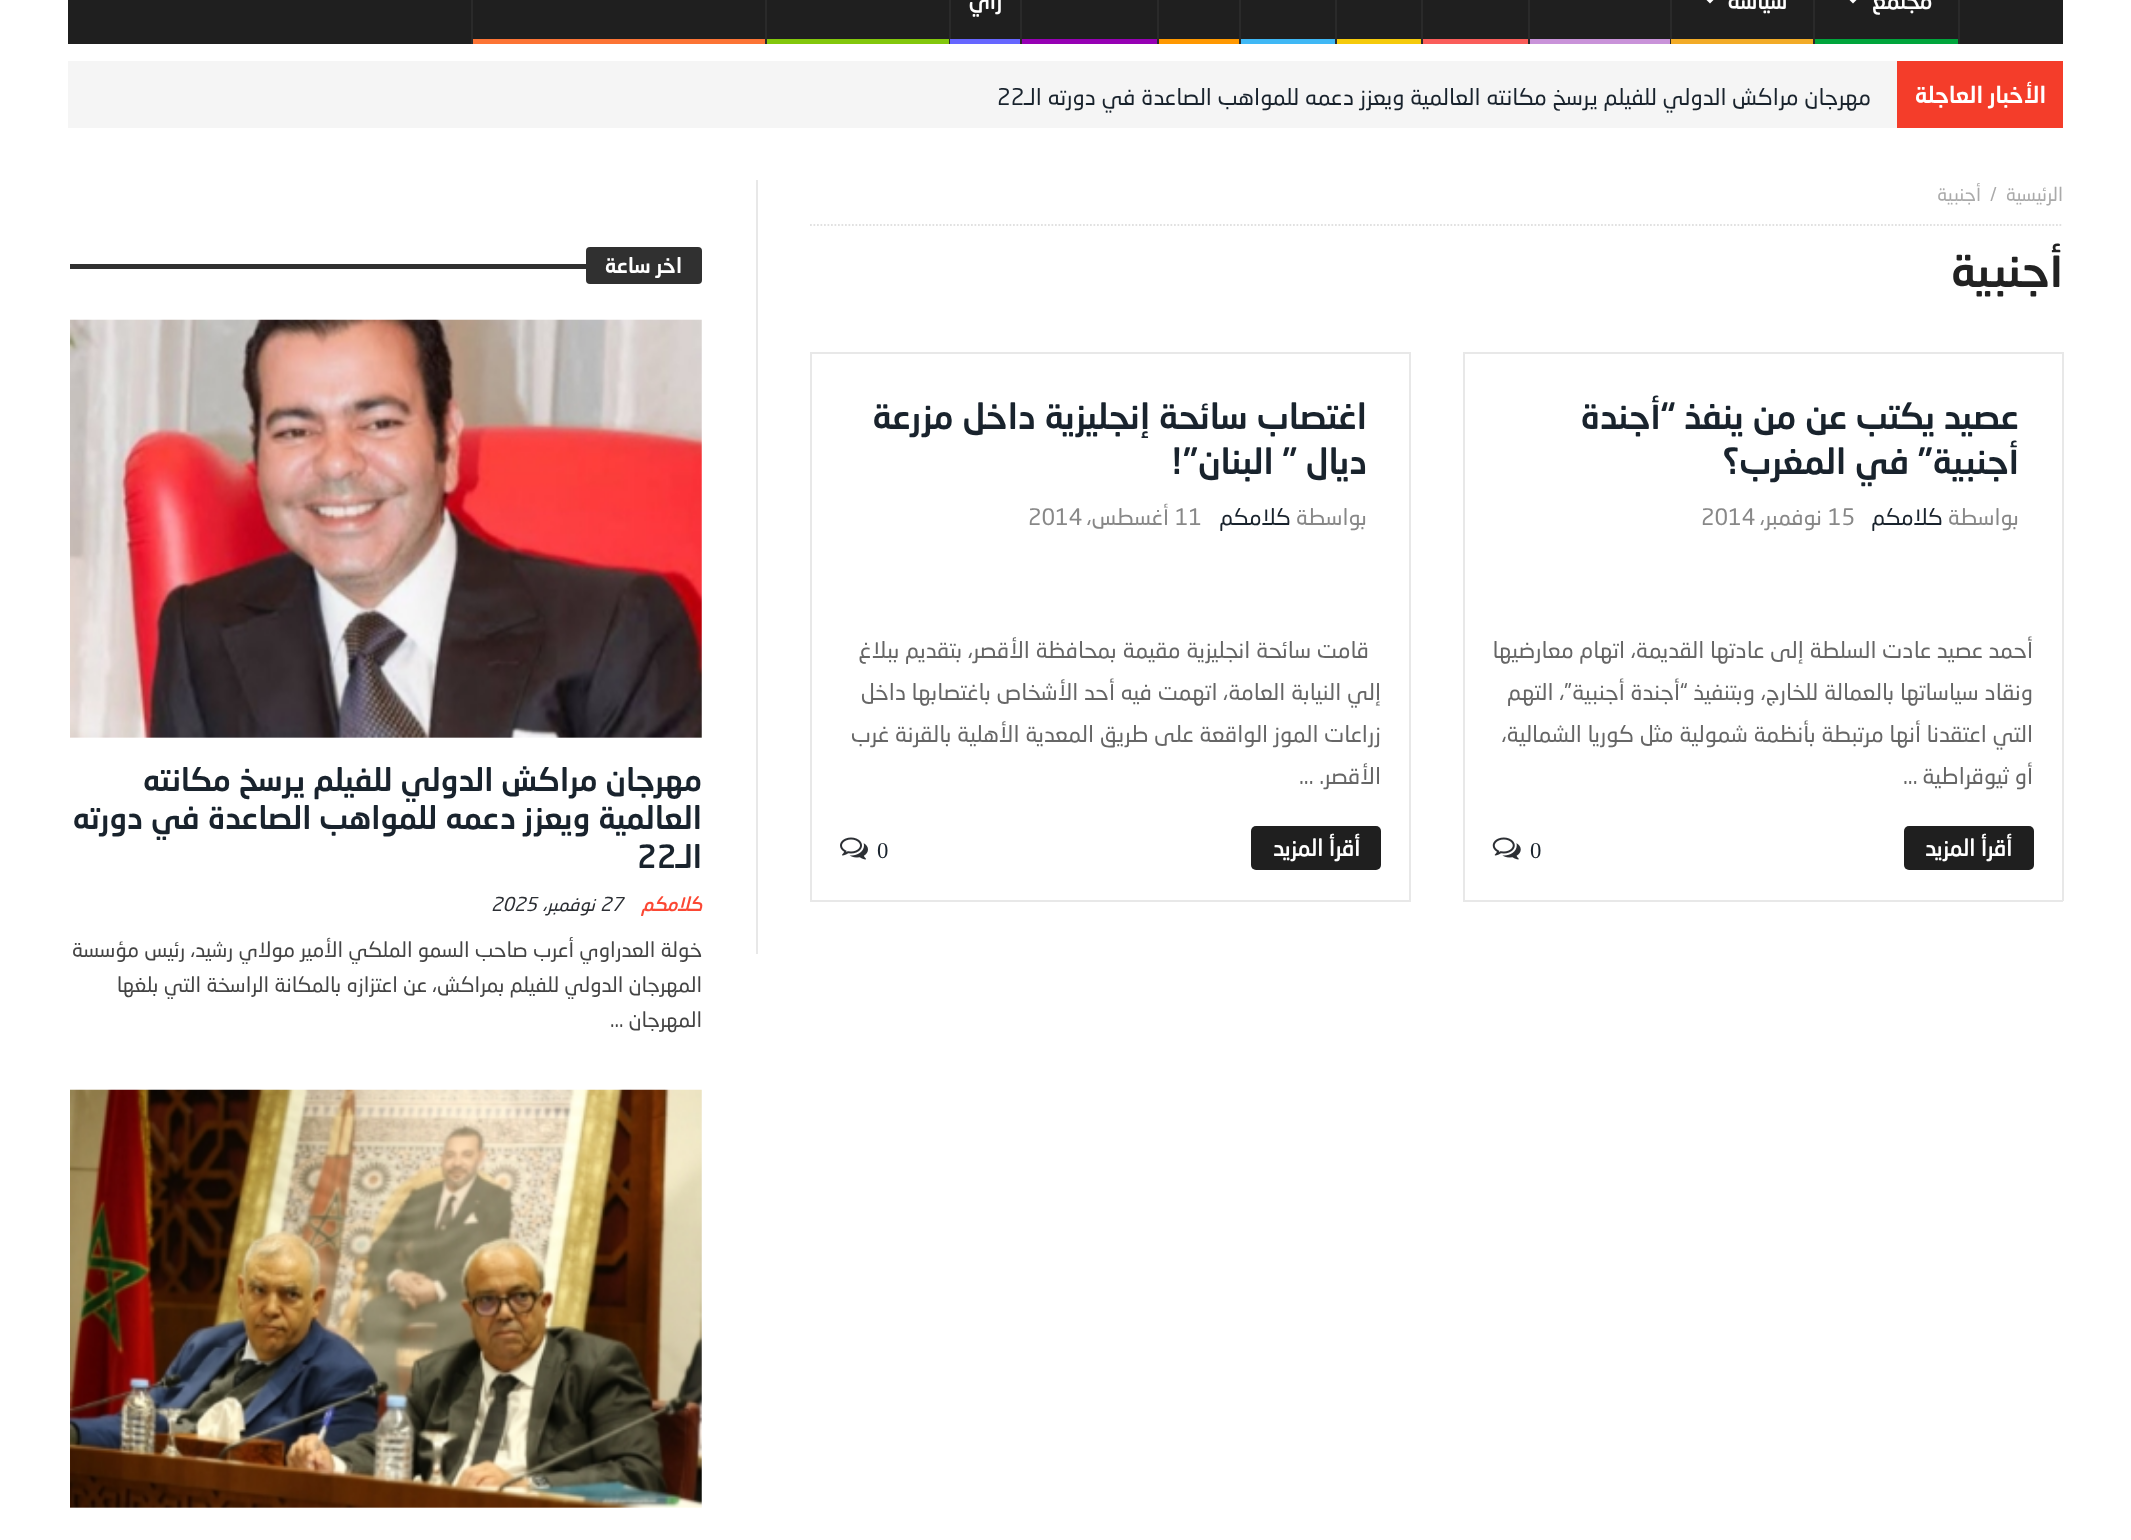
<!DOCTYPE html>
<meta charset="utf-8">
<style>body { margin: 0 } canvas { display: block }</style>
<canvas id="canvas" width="2131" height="1540"></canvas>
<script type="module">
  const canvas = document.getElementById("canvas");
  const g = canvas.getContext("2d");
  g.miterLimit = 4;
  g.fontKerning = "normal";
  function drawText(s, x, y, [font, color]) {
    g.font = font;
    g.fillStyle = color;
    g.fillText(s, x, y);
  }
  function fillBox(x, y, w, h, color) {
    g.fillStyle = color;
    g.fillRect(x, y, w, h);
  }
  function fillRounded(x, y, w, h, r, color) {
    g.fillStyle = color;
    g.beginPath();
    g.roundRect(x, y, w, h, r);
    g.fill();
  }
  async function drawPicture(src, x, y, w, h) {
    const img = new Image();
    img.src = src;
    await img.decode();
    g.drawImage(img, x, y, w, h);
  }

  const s1 = ["bold 22.75px 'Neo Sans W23'", "#FFFFFF"];
  const s2 = ["500 22.75px 'Neo Sans W23'", "#FFFFFF"];
  const s3 = ["22.75px 'Neo Sans W23'", "#19232D"];
  const s4 = ["19px 'Neo Sans W23'", "#AAAAAA"];
  const s5 = ["500 45.5px 'Neo Sans W23'", "#222222"];
  const s6 = ["500 35px 'Neo Sans W23'", "#19232D"];
  const s7 = ["22.5px 'Neo Sans W23'", "#888888"];
  const s8 = ["22.5px 'Neo Sans W23'", "#19232D"];
  const s9 = ["22.75px 'Neo Sans W23'", "#666666"];
  const s10 = ["22.75px Liberation Serif", "#19232D"];
  const s11 = ["500 21px 'Neo Sans W23'", "#FFFFFF"];
  const s12 = ["500 31.5px 'Neo Sans W23'", "#19232D"];
  const s13 = ["italic bold 19px 'Neo Sans W23'", "#FB4834"];
  const s14 = ["italic 19px 'Neo Sans W23'", "#2C2F34"];
  const s15 = ["21px 'Neo Sans W23'", "#444444"];

  fillBox(0, 0, 2131, 1540, "#FFFFFF");
  fillBox(68, 0, 1995, 44, "#1F1F1F");
  fillBox(1958, 0, 2, 44, "#2A2A2A");
  fillBox(1813, 0, 2, 44, "#2A2A2A");
  g.direction = "rtl";
  drawText("مجتمع", 1932, 9, s1);
  g.beginPath();
  g.moveTo(1846, -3.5);
  g.lineTo(1860, -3.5);
  g.lineTo(1853, 3.5);
  g.closePath();
  g.fill();
  fillBox(1815, 39, 143, 5, "#00A53C");
  fillBox(1670, 0, 2, 44, "#2A2A2A");
  drawText("سياسة", 1787, 9, s1);
  g.beginPath();
  g.moveTo(1703, -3.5);
  g.lineTo(1717, -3.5);
  g.lineTo(1710, 3.5);
  g.closePath();
  g.fill();
  fillBox(1671, 39, 142, 5, "#F2AB27");
  fillBox(1528, 0, 2, 44, "#2A2A2A");
  fillBox(1530, 39, 140, 5, "#C993D9");
  fillBox(1421, 0, 2, 44, "#2A2A2A");
  fillBox(1423, 39, 105, 5, "#FA5D5A");
  fillBox(1335, 0, 2, 44, "#2A2A2A");
  fillBox(1337, 39, 84, 5, "#F5CA0C");
  fillBox(1239, 0, 2, 44, "#2A2A2A");
  fillBox(1241, 39, 94, 5, "#3FB8F5");
  fillBox(1157, 0, 2, 44, "#2A2A2A");
  fillBox(1159, 39, 80, 5, "#FF9800");
  fillBox(1020, 0, 2, 44, "#2A2A2A");
  fillBox(1022, 39, 135, 5, "#9600B4");
  fillBox(949, 0, 2, 44, "#2A2A2A");
  drawText("رأي", 1002, 9, s1);
  fillBox(950, 39, 70, 5, "#6666FF");
  fillBox(765, 0, 2, 44, "#2A2A2A");
  fillBox(767, 39, 182, 5, "#82C70C");
  fillBox(471, 0, 2, 44, "#2A2A2A");
  fillBox(473, 39, 292, 5, "#FC7435");
  fillBox(68, 61, 1829, 67, "#F5F5F5");
  fillBox(1897, 61, 166, 67, "#F43D2A");
  drawText("الأخبار العاجلة", 2046, 103, s2);
  drawText("مهرجان مراكش الدولي للفيلم يرسخ مكانته العالمية ويعزز دعمه للمواهب الصاعدة في دورته الـ", 1871, 105, s3);
  g.direction = "ltr";
  drawText("22", 997, 105, s3);
  fillBox(756, 180, 2, 774, "#E8E8E8");
  g.beginPath();
  g.moveTo(810, 225);
  g.lineTo(2063, 225);
  g.strokeStyle = "#E1E1E1";
  g.lineWidth = 1.8;
  g.setLineDash([1.75, 1.75]);
  g.stroke();
  g.direction = "rtl";
  drawText("الرئيسية", 2063, 201, s4);
  g.direction = "ltr";
  drawText("/", 1990, 201, s4);
  g.direction = "rtl";
  drawText("أجنبية", 1981, 201, s4);
  drawText("أجنبية", 2063, 287, s5);
  fillBox(1463, 352, 600, 2, "#E8E8E8");
  fillBox(2062, 352, 2, 549, "#E8E8E8");
  fillBox(1463, 352, 2, 231, "#E8E8E8");
  drawText("عصيد يكتب عن من ينفذ “أجندة", 2019, 429, s6);
  drawText("أجنبية” في المغرب؟", 2019, 474, s6);
  drawText("بواسطة", 2019, 525, s7);
  drawText("كلامكم", 1943, 525, s8);
  g.direction = "ltr";
  drawText("15", 1828, 525, s7);
  g.direction = "rtl";
  drawText("نوفمبر،", 1822, 525, s7);
  g.direction = "ltr";
  drawText("2014", 1701, 525, s7);
  fillBox(1463, 900, 600, 2, "#E8E8E8");
  fillBox(1463, 583, 2, 318, "#E8E8E8");
  g.direction = "rtl";
  drawText("أحمد عصيد عادت السلطة إلى عادتها القديمة، اتهام معارضيها", 2033, 658, s9);
  drawText("ونقاد سياساتها بالعمالة للخارج، وبتنفيذ “أجندة أجنبية”، التهم", 2033, 700, s9);
  drawText("التي اعتقدنا أنها مرتبطة بأنظمة شمولية مثل كوريا الشمالية،", 2033, 742, s9);
  drawText("أو ثيوقراطية", 2033, 784, s9);
  g.direction = "ltr";
  drawText("...", 1903, 784, s9);
  fillRounded(1904, 826, 130, 44, 5, "#1F1F1F");
  g.direction = "rtl";
  drawText("أقرأ المزيد", 2012, 856, s1);
  g.direction = "ltr";
  drawText("0", 1530, 858, s10);
  await drawPicture("pic1.png", 1492, 837, 29, 23);
  fillBox(810, 352, 601, 2, "#E8E8E8");
  fillBox(1409, 352, 2, 549, "#E8E8E8");
  fillBox(810, 352, 2, 231, "#E8E8E8");
  g.direction = "rtl";
  drawText("اغتصاب سائحة إنجليزية داخل مزرعة", 1367, 429, s6);
  drawText("ديال ” البنان”!", 1367, 474, s6);
  drawText("بواسطة", 1367, 525, s7);
  drawText("كلامكم", 1291, 525, s8);
  g.direction = "ltr";
  drawText("11", 1175, 525, s7);
  g.direction = "rtl";
  drawText("أغسطس،", 1169, 525, s7);
  g.direction = "ltr";
  drawText("2014", 1028, 525, s7);
  fillBox(810, 900, 601, 2, "#E8E8E8");
  fillBox(810, 583, 2, 318, "#E8E8E8");
  g.direction = "rtl";
  drawText("قامت سائحة انجليزية مقيمة بمحافظة الأقصر، بتقديم ببلاغ", 1369, 658, s9);
  drawText("إلي النيابة العامة، اتهمت فيه أحد الأشخاص باغتصابها داخل", 1381, 700, s9);
  drawText("زراعات الموز الواقعة على طريق المعدية الأهلية بالقرنة غرب", 1381, 742, s9);
  drawText("الأقصر.", 1381, 784, s9);
  g.direction = "ltr";
  drawText("...", 1299, 784, s9);
  fillRounded(1251, 826, 130, 44, 5, "#1F1F1F");
  g.direction = "rtl";
  drawText("أقرأ المزيد", 1360, 856, s1);
  g.direction = "ltr";
  drawText("0", 877, 858, s10);
  await drawPicture("pic2.png", 840, 837, 28, 23);
  fillBox(70, 264, 516, 5, "#303030");
  fillRounded(586, 247, 116, 37, 4, "#303030");
  g.direction = "rtl";
  drawText("اخر ساعة", 682, 273, s11);
  await drawPicture("pic3.png", 70, 319, 632, 419);
  drawText("مهرجان مراكش الدولي للفيلم يرسخ مكانته", 702, 791, s12);
  drawText("العالمية ويعزز دعمه للمواهب الصاعدة في دورته", 702, 829, s12);
  drawText("الـ", 702, 868, s12);
  g.direction = "ltr";
  drawText("22", 637, 868, s12);
  g.direction = "rtl";
  drawText("كلامكم", 702, 911, s13);
  g.direction = "ltr";
  drawText("27", 600, 911, s14);
  g.direction = "rtl";
  drawText("نوفمبر،", 595, 911, s14);
  g.direction = "ltr";
  drawText("2025", 491, 911, s14);
  g.direction = "rtl";
  drawText("خولة العدراوي أعرب صاحب السمو الملكي الأمير مولاي رشيد، رئيس مؤسسة", 702, 957, s15);
  drawText("المهرجان الدولي للفيلم بمراكش، عن اعتزازه بالمكانة الراسخة التي بلغها", 702, 992, s15);
  drawText("المهرجان", 702, 1027, s15);
  g.direction = "ltr";
  drawText("...", 610, 1027, s15);
  await drawPicture("pic4.png", 70, 1089, 632, 419);
</script>
